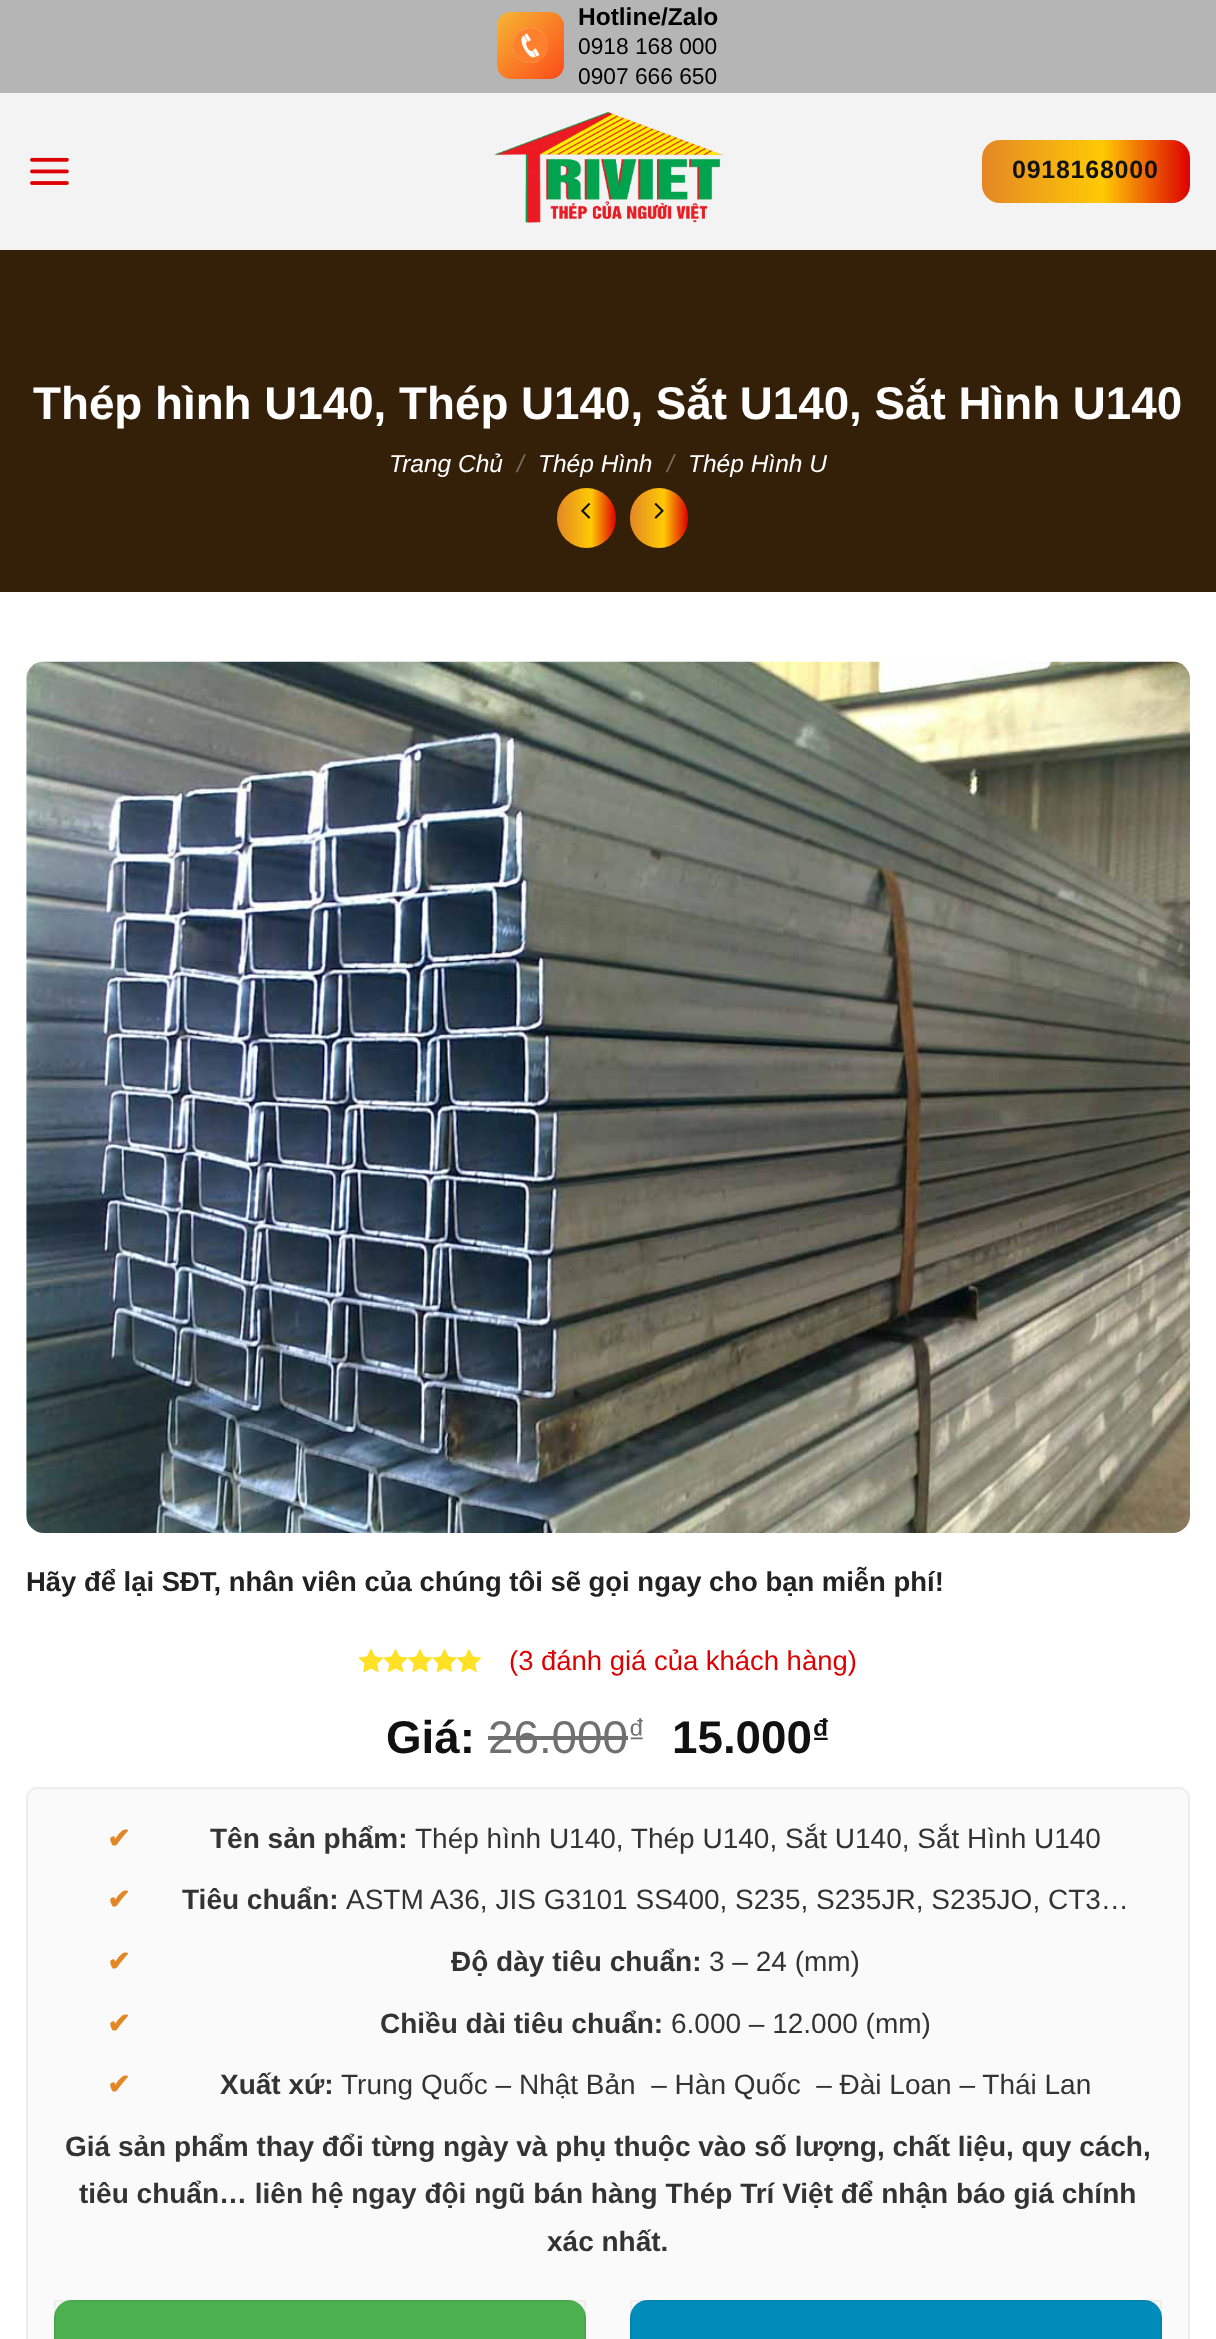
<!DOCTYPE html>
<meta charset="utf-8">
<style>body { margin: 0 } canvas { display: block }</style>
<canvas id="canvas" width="1216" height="2339"></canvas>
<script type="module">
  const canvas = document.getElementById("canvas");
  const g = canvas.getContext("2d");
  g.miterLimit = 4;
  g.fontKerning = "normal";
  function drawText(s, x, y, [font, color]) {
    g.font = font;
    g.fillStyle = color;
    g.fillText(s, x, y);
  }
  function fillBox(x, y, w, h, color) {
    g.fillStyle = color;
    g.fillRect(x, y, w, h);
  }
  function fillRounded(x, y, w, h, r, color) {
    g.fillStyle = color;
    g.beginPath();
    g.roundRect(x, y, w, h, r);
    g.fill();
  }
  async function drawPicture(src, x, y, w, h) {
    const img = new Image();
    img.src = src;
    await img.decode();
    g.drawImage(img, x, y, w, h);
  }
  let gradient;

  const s1 = ["bold 24.5px Liberation Sans", "#000000"];
  const s2 = ["22.75px Liberation Sans", "#000000"];
  const s3 = ["bold 25px Liberation Sans", "#111111"];
  const s4 = ["bold 45.75px Liberation Sans", "#FFFFFF"];
  const s5 = ["italic 24.5px Liberation Sans", "#FFFFFF"];
  const s6 = ["italic 24.5px Liberation Sans", "#7B6D5F"];
  const s7 = ["bold 27.45px Liberation Sans", "#222222"];
  const s8 = ["27.45px Liberation Sans", "#DD0000"];
  const s9 = ["bold 45.75px Liberation Sans", "#111111"];
  const s10 = ["45.75px Liberation Sans", "#707070"];
  const s11 = ["34px Liberation Sans", "#707070"];
  const s12 = ["bold 34px Liberation Sans", "#111111"];
  const s13 = ["bold 28px DejaVu Sans", "#E28626"];
  const s14 = ["bold 28px Liberation Sans", "#333333"];
  const s15 = ["28px Liberation Sans", "#333333"];

  fillBox(0, 0, 1216, 2339, "#FFFFFF");
  fillBox(0, 0, 1216, 93, "#B5B5B5");
  gradient = g.createLinearGradient(497, 12, 564, 79);
  gradient.addColorStop(0, "#F7B733");
  gradient.addColorStop(1, "#FC4A1A");
  g.fillStyle = gradient;
  g.beginPath();
  g.roundRect(497, 12, 67, 67, 14);
  g.fill();
  await drawPicture("pic1.png", 513, 28, 35, 35);
  drawText("Hotline/Zalo", 578, 25, s1);
  drawText("0918 168 000", 578, 54, s2);
  drawText("0907 666 650", 578, 84, s2);
  fillBox(0, 93, 1216, 157, "#F3F3F3");
  await drawPicture("pic2.png", 30, 157, 39, 28);
  await drawPicture("pic3.png", 494, 111, 229, 112);
  gradient = g.createLinearGradient(982, 172, 1190, 172);
  gradient.addColorStop(0, "#E38725");
  gradient.addColorStop(0.58, "#FFCA05");
  gradient.addColorStop(1, "#DD0000");
  g.fillStyle = gradient;
  g.beginPath();
  g.roundRect(982, 140, 208, 63, 18);
  g.fill();
  g.letterSpacing = "0.75px";
  drawText("0918168000", 1012, 178, s3);
  fillBox(0, 250, 1216, 342, "#341F09");
  g.letterSpacing = "0px";
  drawText("Thép hình U140, Thép U140, Sắt U140, Sắt Hình U140", 33, 419, s4);
  drawText("Trang Chủ", 389, 472, s5);
  drawText("/", 517, 472, s6);
  drawText("Thép Hình", 538, 472, s5);
  drawText("/", 667, 472, s6);
  drawText("Thép Hình U", 688, 472, s5);
  gradient = g.createLinearGradient(557, 518, 616, 518);
  gradient.addColorStop(0, "#E38725");
  gradient.addColorStop(0.58, "#FFCA05");
  gradient.addColorStop(1, "#DD0000");
  g.fillStyle = gradient;
  g.beginPath();
  g.roundRect(557, 488, 59, 60, 29.5);
  g.fill();
  await drawPicture("pic4.png", 581, 503, 10, 16);
  gradient = g.createLinearGradient(630, 518, 688, 518);
  gradient.addColorStop(0, "#E38725");
  gradient.addColorStop(0.58, "#FFCA05");
  gradient.addColorStop(1, "#DD0000");
  g.fillStyle = gradient;
  g.beginPath();
  g.roundRect(630, 488, 58, 60, 29);
  g.fill();
  await drawPicture("pic5.png", 654, 503, 10, 16);
  await drawPicture("pic6.png", 26, 661, 1164, 872);
  drawText("Hãy để lại SĐT, nhân viên của chúng tôi sẽ gọi ngay cho bạn miễn phí!", 26, 1591, s7);
  await drawPicture("pic7.png", 359, 1649, 123, 24);
  await drawPicture("pic8.png", 359, 1649, 123, 24);
  await drawPicture("pic9.png", 359, 1649, 17, 24);
  drawText("(3 đánh giá của khách hàng)", 509, 1670, s8);
  drawText("Giá:", 386, 1753, s9);
  drawText("26.000", 488, 1753, s10);
  fillBox(488, 1736, 140, 4, "#707070");
  drawText("₫", 628, 1743, s11);
  drawText("15.000", 672, 1753, s9);
  drawText("₫", 812, 1743, s12);
  g.fillStyle = "#FAFAFA";
  g.beginPath();
  g.roundRect(27, 1788, 1162, 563, 10);
  g.fill();
  g.strokeStyle = "#EEEEEE";
  g.lineWidth = 2;
  g.stroke();
  drawText("✔", 107, 1848, s13);
  drawText("Tên sản phẩm:", 210, 1848, s14);
  drawText("Thép hình U140, Thép U140, Sắt U140, Sắt Hình U140", 415, 1848, s15);
  drawText("✔", 107, 1909, s13);
  drawText("Tiêu chuẩn:", 182, 1909, s14);
  drawText("ASTM A36, JIS G3101 SS400, S235, S235JR, S235JO, CT3…", 346, 1909, s15);
  drawText("✔", 107, 1971, s13);
  drawText("Độ dày tiêu chuẩn:", 451, 1971, s14);
  drawText("3 – 24 (mm)", 709, 1971, s15);
  drawText("✔", 107, 2033, s13);
  drawText("Chiều dài tiêu chuẩn:", 380, 2033, s14);
  drawText("6.000 – 12.000 (mm)", 671, 2033, s15);
  drawText("✔", 107, 2094, s13);
  drawText("Xuất xứ:", 220, 2094, s14);
  drawText("Trung Quốc – Nhật Bản  – Hàn Quốc  – Đài Loan – Thái Lan", 341, 2094, s15);
  drawText("Giá sản phẩm thay đổi từng ngày và phụ thuộc vào số lượng, chất liệu, quy cách,", 65, 2156, s14);
  drawText("tiêu chuẩn… liên hệ ngay đội ngũ bán hàng Thép Trí Việt để nhận báo giá chính", 79, 2203, s14);
  drawText("xác nhất.", 547, 2251, s14);
  fillRounded(54, 2300, 532, 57, 18, "#4CAF50");
  g.strokeStyle = "rgba(0, 0, 0, 0.05)";
  g.strokeRect(55, 2301, 530, 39);
  fillRounded(630, 2300, 532, 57, 18, "#008CBA");
  g.strokeRect(631, 2301, 530, 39);
</script>
